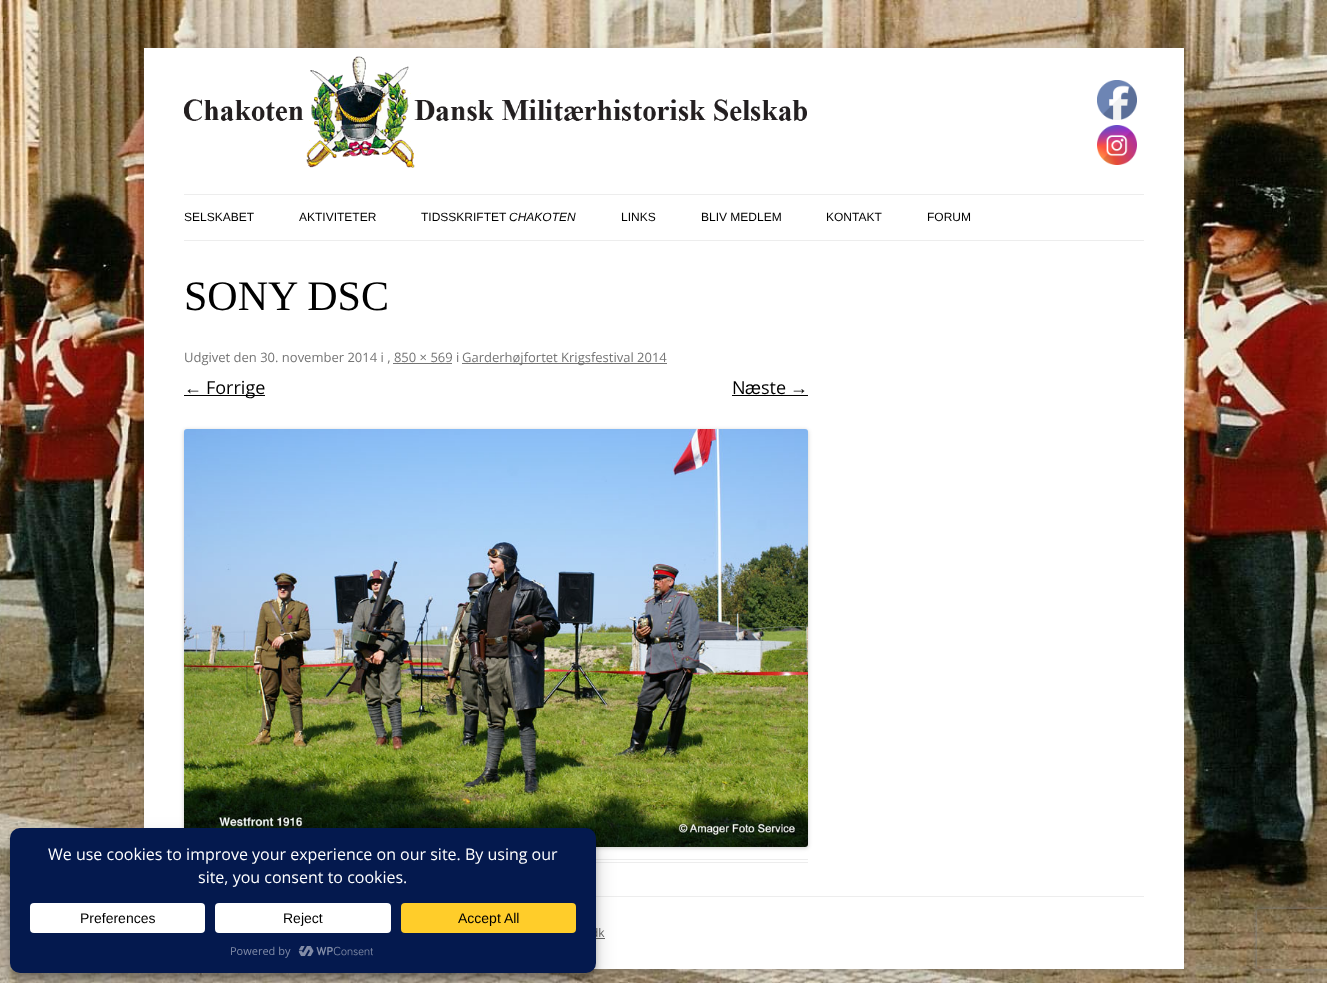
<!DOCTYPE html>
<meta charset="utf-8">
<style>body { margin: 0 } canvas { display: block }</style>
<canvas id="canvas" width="1327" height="983"></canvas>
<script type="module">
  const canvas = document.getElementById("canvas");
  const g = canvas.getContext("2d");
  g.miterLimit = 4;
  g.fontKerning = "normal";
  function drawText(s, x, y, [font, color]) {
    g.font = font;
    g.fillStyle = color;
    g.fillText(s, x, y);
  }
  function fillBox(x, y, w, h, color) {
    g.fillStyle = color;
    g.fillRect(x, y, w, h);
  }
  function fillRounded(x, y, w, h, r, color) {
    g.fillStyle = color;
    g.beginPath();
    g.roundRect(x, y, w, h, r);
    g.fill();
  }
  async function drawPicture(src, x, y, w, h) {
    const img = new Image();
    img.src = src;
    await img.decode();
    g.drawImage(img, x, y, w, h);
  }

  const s1 = ["12px Liberation Sans", "#000000"];
  const s2 = ["italic 12px Liberation Sans", "#000000"];
  const s3 = ["42px Liberation Serif", "#000000"];
  const s4 = ["13px Open Sans", "#757575"];
  const s5 = ["18px Liberation Sans", "#000000"];
  const s6 = ["18px Open Sans", "#000000"];
  const s7 = ["12px Open Sans", "#686868"];
  const s8 = ["16px Open Sans", "#FFFFFF"];
  const s9 = ["14px Liberation Sans", "#000000"];
  const s10 = ["11px Open Sans", "#828CA7"];

  fillBox(0, 0, 1327, 983, "#FFFFFF");
  await drawPicture("pic1.png", 0, 0, 1327, 983);
  g.fillStyle = "rgba(100, 100, 100, 0.3)";
  g.filter = "blur(3px)";
  g.beginPath();
  g.rect(144, 50, 1040, 921);
  g.fill();
  g.filter = "none";
  fillBox(144, 48, 1040, 921, "#FFFFFF");
  await drawPicture("pic2.png", 1097, 80, 40, 40);
  await drawPicture("pic3.png", 1097, 125, 40, 40);
  await drawPicture("pic4.png", 184, 56, 623, 112);
  fillBox(184, 194, 960, 1, "#EDEDED");
  fillBox(184, 240, 960, 1, "#EDEDED");
  drawText("SELSKABET", 184, 221, s1);
  drawText("AKTIVITETER", 299, 221, s1);
  drawText("TIDSSKRIFTET", 421, 221, s1);
  drawText("CHAKOTEN", 509, 221, s2);
  drawText("LINKS", 621, 221, s1);
  drawText("BLIV MEDLEM", 701, 221, s1);
  drawText("KONTAKT", 826, 221, s1);
  drawText("FORUM", 927, 221, s1);
  fillBox(596, 859, 212, 1, "#EDEDED");
  fillBox(596, 862, 212, 1, "#EDEDED");
  drawText("SONY DSC", 184, 310, s3);
  drawText("Udgivet den 30. november 2014 i , 850 × 569 i", 184, 362, s4);
  fillBox(462, 363, 205, 1, "#757575");
  drawText("Garderhøjfortet Krigsfestival 2014", 462, 362, s4);
  fillBox(393, 363, 59, 1, "#757575");
  drawText("←", 184, 394, s5);
  fillBox(184, 395, 81, 1, "#000000");
  drawText("Forrige", 206, 394, s6);
  drawText("N", 732, 394, s6);
  drawText("æ", 745, 394, s5);
  drawText("ste", 761, 394, s6);
  drawText("→", 790, 394, s5);
  fillBox(732, 395, 76, 1, "#000000");
  g.fillStyle = "rgba(0, 0, 0, 0.2)";
  g.filter = "blur(2px)";
  g.beginPath();
  g.roundRect(184, 430, 624, 418, 3);
  g.fill();
  g.filter = "none";
  await drawPicture("pic5.png", 184, 429, 624, 418);
  fillBox(596, 896, 548, 1, "#EDEDED");
  drawText("dk", 591, 937, s7);
  fillBox(596, 938, 9, 1, "#686868");
  g.fillStyle = "rgba(0, 0, 0, 0.23)";
  g.filter = "blur(3px)";
  g.beginPath();
  g.roundRect(10, 834, 586, 145, 10);
  g.fill();
  g.filter = "none";
  g.fillStyle = "rgba(0, 0, 0, 0.19)";
  g.filter = "blur(10px)";
  g.beginPath();
  g.roundRect(10, 838, 586, 145, 10);
  g.fill();
  g.filter = "none";
  fillRounded(10, 828, 586, 145, 10, "#04194E");
  drawText("We use cookies to improve your experience on our site. By using our", 48, 860, s8);
  drawText("site, you consent to cookies.", 198, 883, s8);
  fillRounded(30, 903, 175, 30, 4, "#FFFFFF");
  drawText("Preferences", 80, 923, s9);
  fillRounded(215, 903, 176, 30, 4, "#FFFFFF");
  drawText("Reject", 283, 923, s9);
  fillRounded(401, 903, 175, 30, 4, "#FFCD2A");
  drawText("Accept All", 458, 923, s9);
  drawText("Powered by", 230, 955, s10);
  await drawPicture("pic6.png", 298, 946, 75, 11);
  g.save();
  g.beginPath();
  g.moveTo(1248, 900);
  g.lineTo(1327, 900);
  g.lineTo(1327, 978);
  g.lineTo(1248, 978);
  g.closePath();
  g.moveTo(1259, 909);
  g.lineTo(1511, 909);
  g.bezierCurveTo(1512, 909, 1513, 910, 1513, 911);
  g.lineTo(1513, 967);
  g.bezierCurveTo(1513, 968, 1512, 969, 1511, 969);
  g.lineTo(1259, 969);
  g.bezierCurveTo(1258, 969, 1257, 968, 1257, 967);
  g.lineTo(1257, 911);
  g.bezierCurveTo(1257, 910, 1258, 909, 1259, 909);
  g.closePath();
  g.clip("evenodd");
  g.fillStyle = "#808080";
  g.filter = "blur(2.5px)";
  g.beginPath();
  g.roundRect(1257, 909, 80, 60, 2);
  g.fill();
  g.filter = "none";
  g.restore();
</script>
